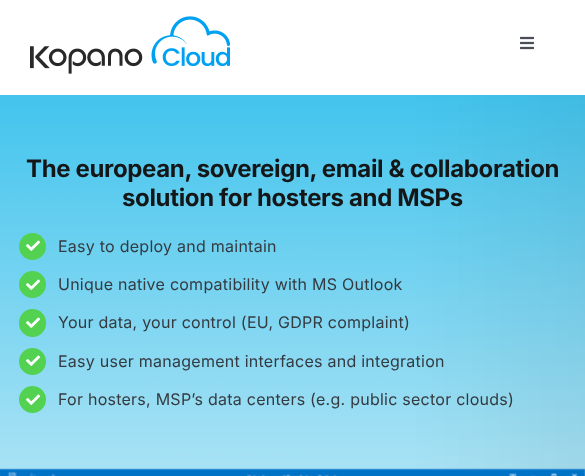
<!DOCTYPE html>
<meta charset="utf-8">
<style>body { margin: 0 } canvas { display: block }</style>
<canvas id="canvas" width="585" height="476"></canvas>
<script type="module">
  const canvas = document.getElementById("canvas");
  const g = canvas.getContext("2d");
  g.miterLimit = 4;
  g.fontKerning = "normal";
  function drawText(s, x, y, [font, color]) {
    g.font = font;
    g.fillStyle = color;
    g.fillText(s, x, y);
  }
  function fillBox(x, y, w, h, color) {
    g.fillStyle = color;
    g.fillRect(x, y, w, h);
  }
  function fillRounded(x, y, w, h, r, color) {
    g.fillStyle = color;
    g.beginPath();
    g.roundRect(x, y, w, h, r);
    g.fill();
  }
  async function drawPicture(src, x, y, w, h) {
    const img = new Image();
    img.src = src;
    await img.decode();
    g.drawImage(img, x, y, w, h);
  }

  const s1 = ["bold 24px Inter", "#141617"];
  const s2 = ["16px Inter", "#343A40"];

  fillBox(0, 0, 585, 476, "#FFFFFF");
  await drawPicture("pic1.png", 30, 16, 200, 58);
  await drawPicture("pic2.png", 520, 36, 14, 14);
  await drawPicture("pic3.png", 0, 95, 585, 381);
  g.letterSpacing = "-0.35px";
  drawText("The european, sovereign, email & collaboration", 26, 177, s1);
  drawText("solution for hosters and MSPs", 122, 206, s1);
  g.fillStyle = "#53D151";
  g.beginPath();
  g.arc(32.5, 246.5, 13.5, 0, Math.PI * 2);
  g.fill();
  await drawPicture("pic4.png", 26, 240, 14, 11);
  g.letterSpacing = "0.25px";
  drawText("Easy to deploy and maintain", 58, 252, s2);
  g.fillStyle = "#53D151";
  g.beginPath();
  g.arc(32.5, 284.5, 13.5, 0, Math.PI * 2);
  g.fill();
  await drawPicture("pic4.png", 26, 279, 14, 11);
  drawText("Unique native compatibility with MS Outlook", 58, 290, s2);
  fillRounded(19, 309, 27, 28, 13.5, "#53D151");
  await drawPicture("pic4.png", 26, 317, 14, 11);
  drawText("Your data, your control (EU, GDPR complaint)", 58, 328, s2);
  g.fillStyle = "#53D151";
  g.beginPath();
  g.arc(32.5, 361.5, 13.5, 0, Math.PI * 2);
  g.fill();
  await drawPicture("pic4.png", 26, 355, 14, 11);
  drawText("Easy user management interfaces and integration", 58, 367, s2);
  g.fillStyle = "#53D151";
  g.beginPath();
  g.arc(32.5, 399.5, 13.5, 0, Math.PI * 2);
  g.fill();
  await drawPicture("pic4.png", 26, 394, 14, 11);
  drawText("For hosters, MSP’s data centers (e.g. public sector clouds)", 58, 405, s2);
  await drawPicture("pic5.png", 0, 468, 585, 8);
</script>
